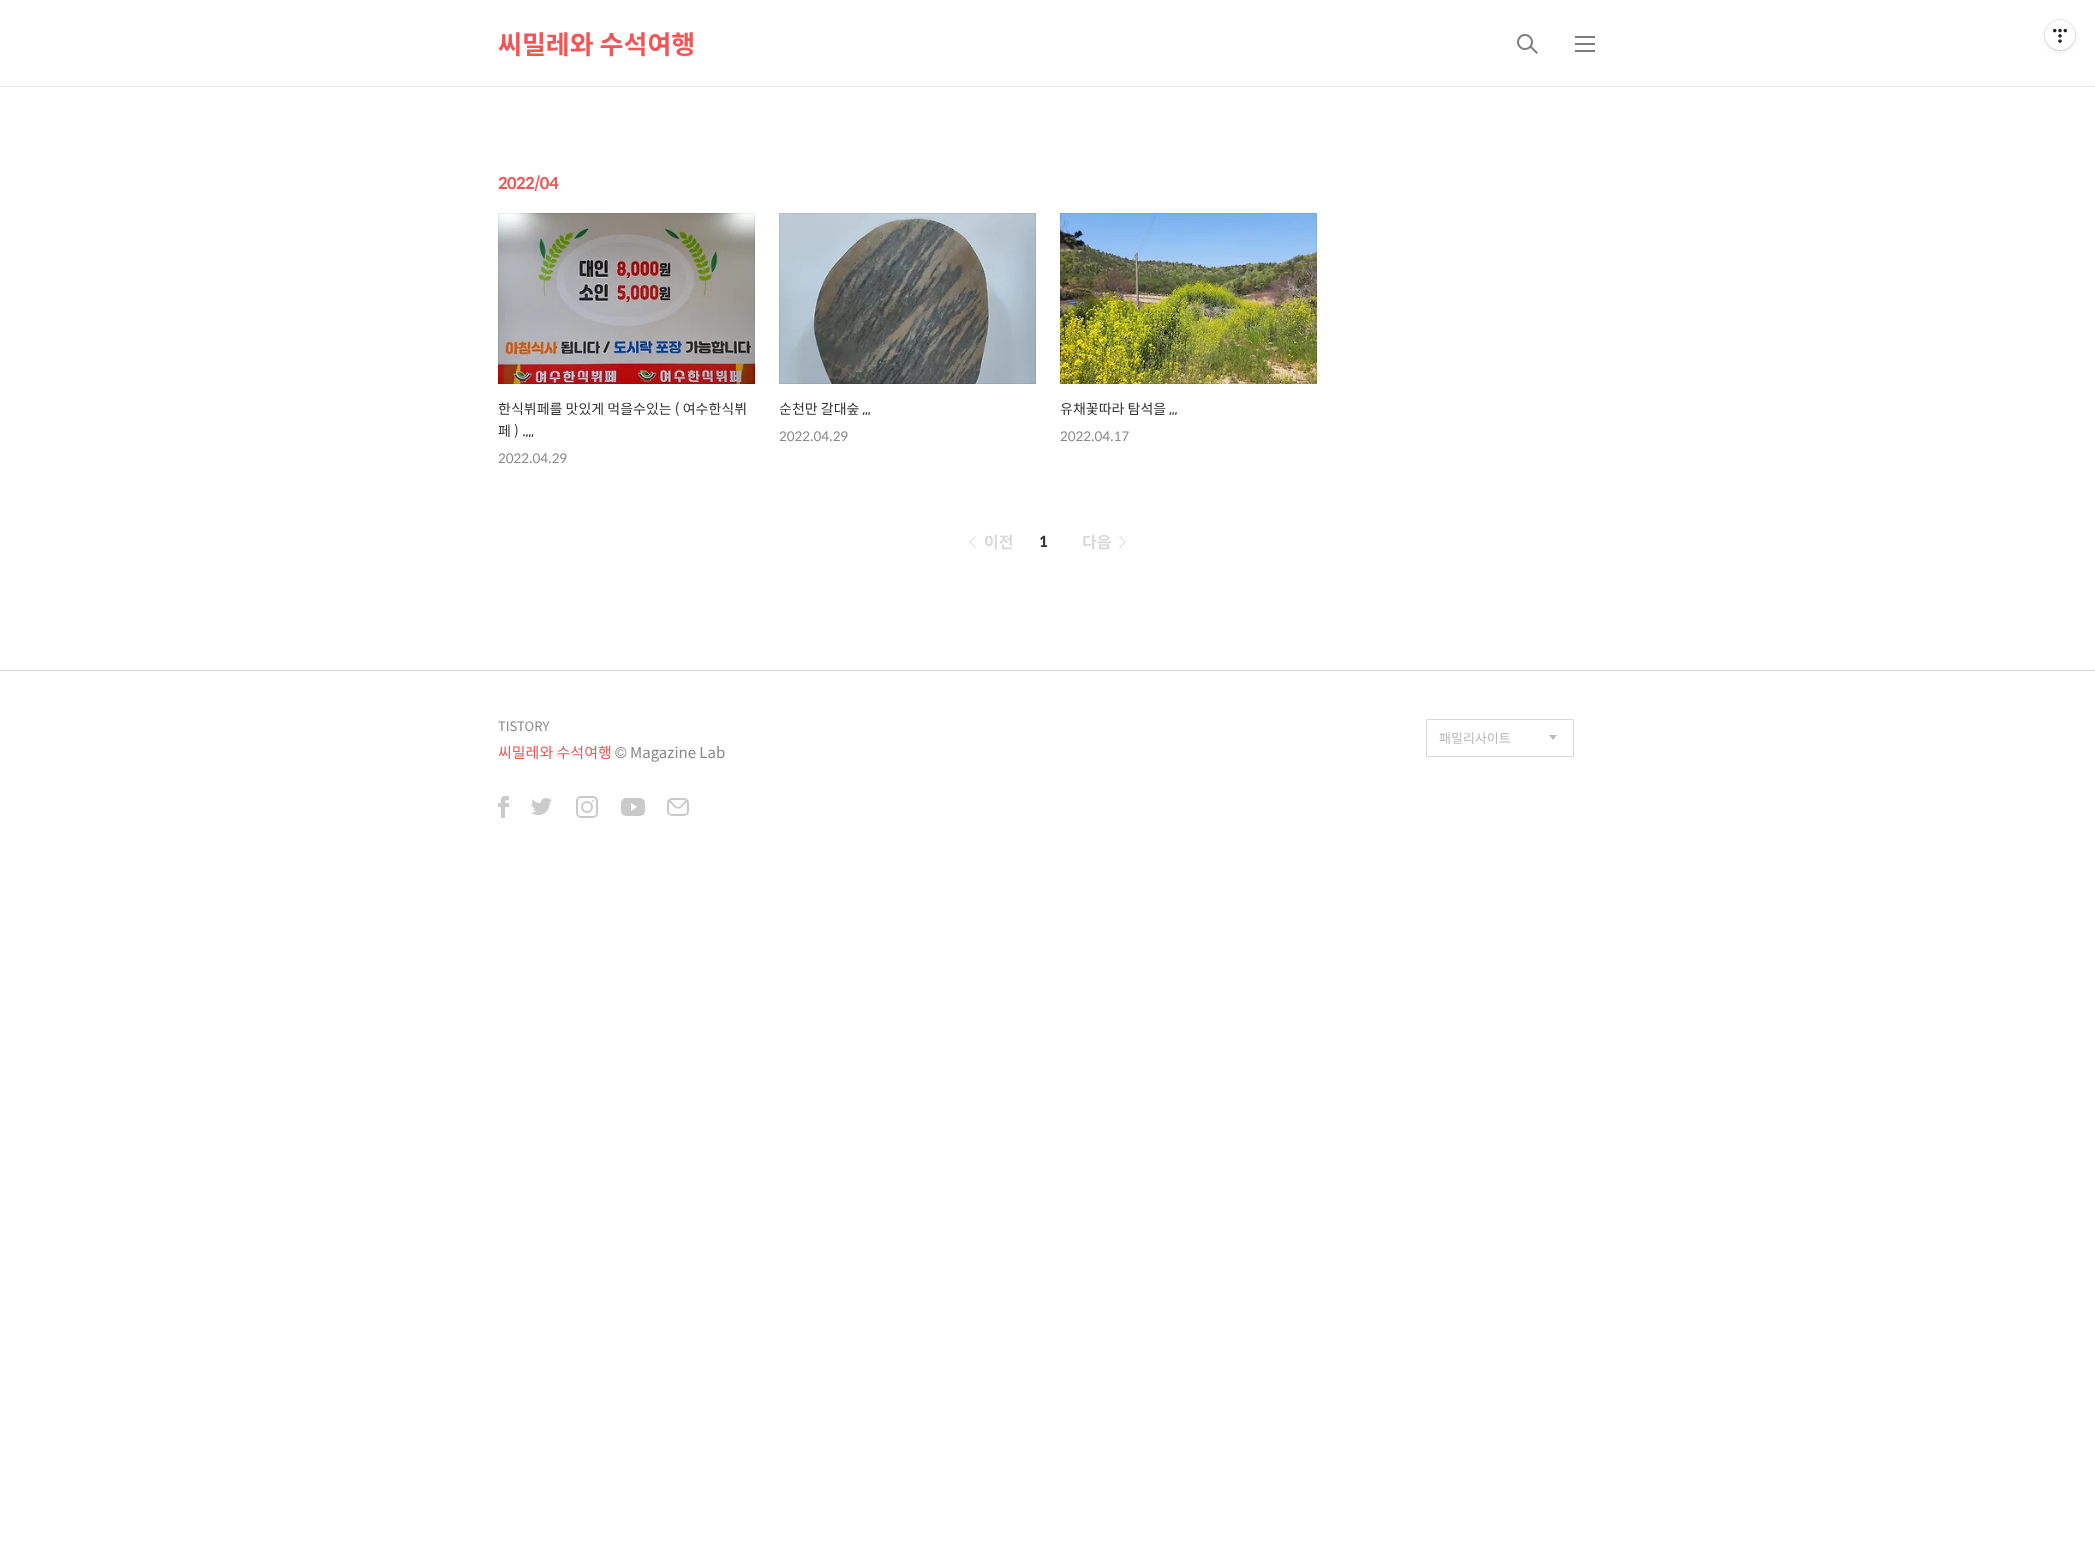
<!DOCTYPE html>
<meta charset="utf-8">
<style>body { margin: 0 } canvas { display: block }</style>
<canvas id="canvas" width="2095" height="1556"></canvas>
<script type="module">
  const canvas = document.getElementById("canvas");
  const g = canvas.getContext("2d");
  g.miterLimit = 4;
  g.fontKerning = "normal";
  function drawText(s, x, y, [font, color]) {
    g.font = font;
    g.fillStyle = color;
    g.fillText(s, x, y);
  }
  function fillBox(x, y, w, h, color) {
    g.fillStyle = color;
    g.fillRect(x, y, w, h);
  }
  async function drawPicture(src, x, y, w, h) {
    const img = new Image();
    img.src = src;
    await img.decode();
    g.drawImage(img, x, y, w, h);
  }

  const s1 = ["bold 26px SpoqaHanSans", "#F25555"];
  const s2 = ["bold 16px SpoqaHanSans", "#F25555"];
  const s3 = ["14px SpoqaHanSans", "#333333"];
  const s4 = ["13px SpoqaHanSans", "#888888"];
  const s5 = ["bold 16px SpoqaHanSans", "#D9D9D9"];
  const s6 = ["bold 15px SpoqaHanSans", "#333333"];
  const s7 = ["15px SpoqaHanSans", "#F25555"];
  const s8 = ["15px Dotum", "#888888"];
  const s9 = ["15px SpoqaHanSans", "#888888"];
  const s10 = ["13px SpoqaHanSans", "#B9B9B9"];

  fillBox(0, 0, 2095, 1556, "#FFFFFF");
  fillBox(0, 86, 2095, 1, "#E6E6E6");
  drawText("씨밀레와 수석여행", 498, 54, s1);
  await drawPicture("pic1.png", 1517, 34, 21, 20);
  await drawPicture("pic2.png", 1575, 36, 20, 16);
  g.letterSpacing = "-0.5px";
  drawText("2022/04", 498, 189, s2);
  await drawPicture("pic3.png", 498, 213, 257, 171);
  g.strokeStyle = "rgba(0, 0, 0, 0.06)";
  g.strokeRect(498.5, 213.5, 256, 170);
  g.letterSpacing = "0px";
  drawText("한식뷔페를 맛있게 먹을수있는 ( 여수한식뷔", 498, 414, s3);
  drawText("페 ) .,,,", 498, 436, s3);
  drawText("2022.04.29", 498, 463, s4);
  await drawPicture("pic4.png", 779, 213, 257, 171);
  g.strokeRect(779.5, 213.5, 256, 170);
  drawText("순천만 갈대숲 ,,,", 779, 414, s3);
  drawText("2022.04.29", 779, 441, s4);
  await drawPicture("pic5.png", 1060, 213, 257, 171);
  g.strokeRect(1060.5, 213.5, 256, 170);
  drawText("유채꽃따라 탐석을 ,,,", 1060, 414, s3);
  drawText("2022.04.17", 1060, 441, s4);
  await drawPicture("pic6.png", 969, 536, 7, 12);
  drawText("이전", 984, 548, s5);
  drawText("1", 1039, 547, s6);
  drawText("다음", 1082, 548, s5);
  await drawPicture("pic7.png", 1119, 536, 7, 12);
  fillBox(0, 670, 2095, 1, "#D9D9D9");
  drawText("TISTORY", 498, 731, s4);
  drawText("씨밀레와 수석여행", 498, 758, s7);
  drawText("©", 615, 758, s8);
  drawText("Magazine Lab", 630, 758, s9);
  await drawPicture("pic8.png", 498, 796, 11, 22);
  await drawPicture("pic9.png", 531, 798, 21, 17);
  await drawPicture("pic10.png", 576, 796, 22, 22);
  await drawPicture("pic11.png", 621, 798, 24, 18);
  await drawPicture("pic12.png", 667, 798, 22, 18);
  g.strokeStyle = "#D9D9D9";
  g.strokeRect(1426.5, 719.5, 147, 37);
  drawText("패밀리사이트", 1439, 743, s10);
  g.beginPath();
  g.moveTo(1549, 735);
  g.lineTo(1557, 735);
  g.lineTo(1553, 740);
  g.closePath();
  g.fill();
  g.fillStyle = "rgba(0, 0, 0, 0.1)";
  g.filter = "blur(2.5px)";
  g.beginPath();
  g.roundRect(2045, 22, 30, 30, 15);
  g.fill();
  g.filter = "none";
  g.beginPath();
  g.arc(2060, 35, 15.5, 0, Math.PI * 2);
  g.strokeStyle = "rgba(0, 0, 0, 0.1)";
  g.stroke();
  g.fillStyle = "#FFFFFF";
  g.beginPath();
  g.arc(2060, 35, 15, 0, Math.PI * 2);
  g.fill();
  await drawPicture("pic13.png", 2053, 28, 14, 15);
</script>
